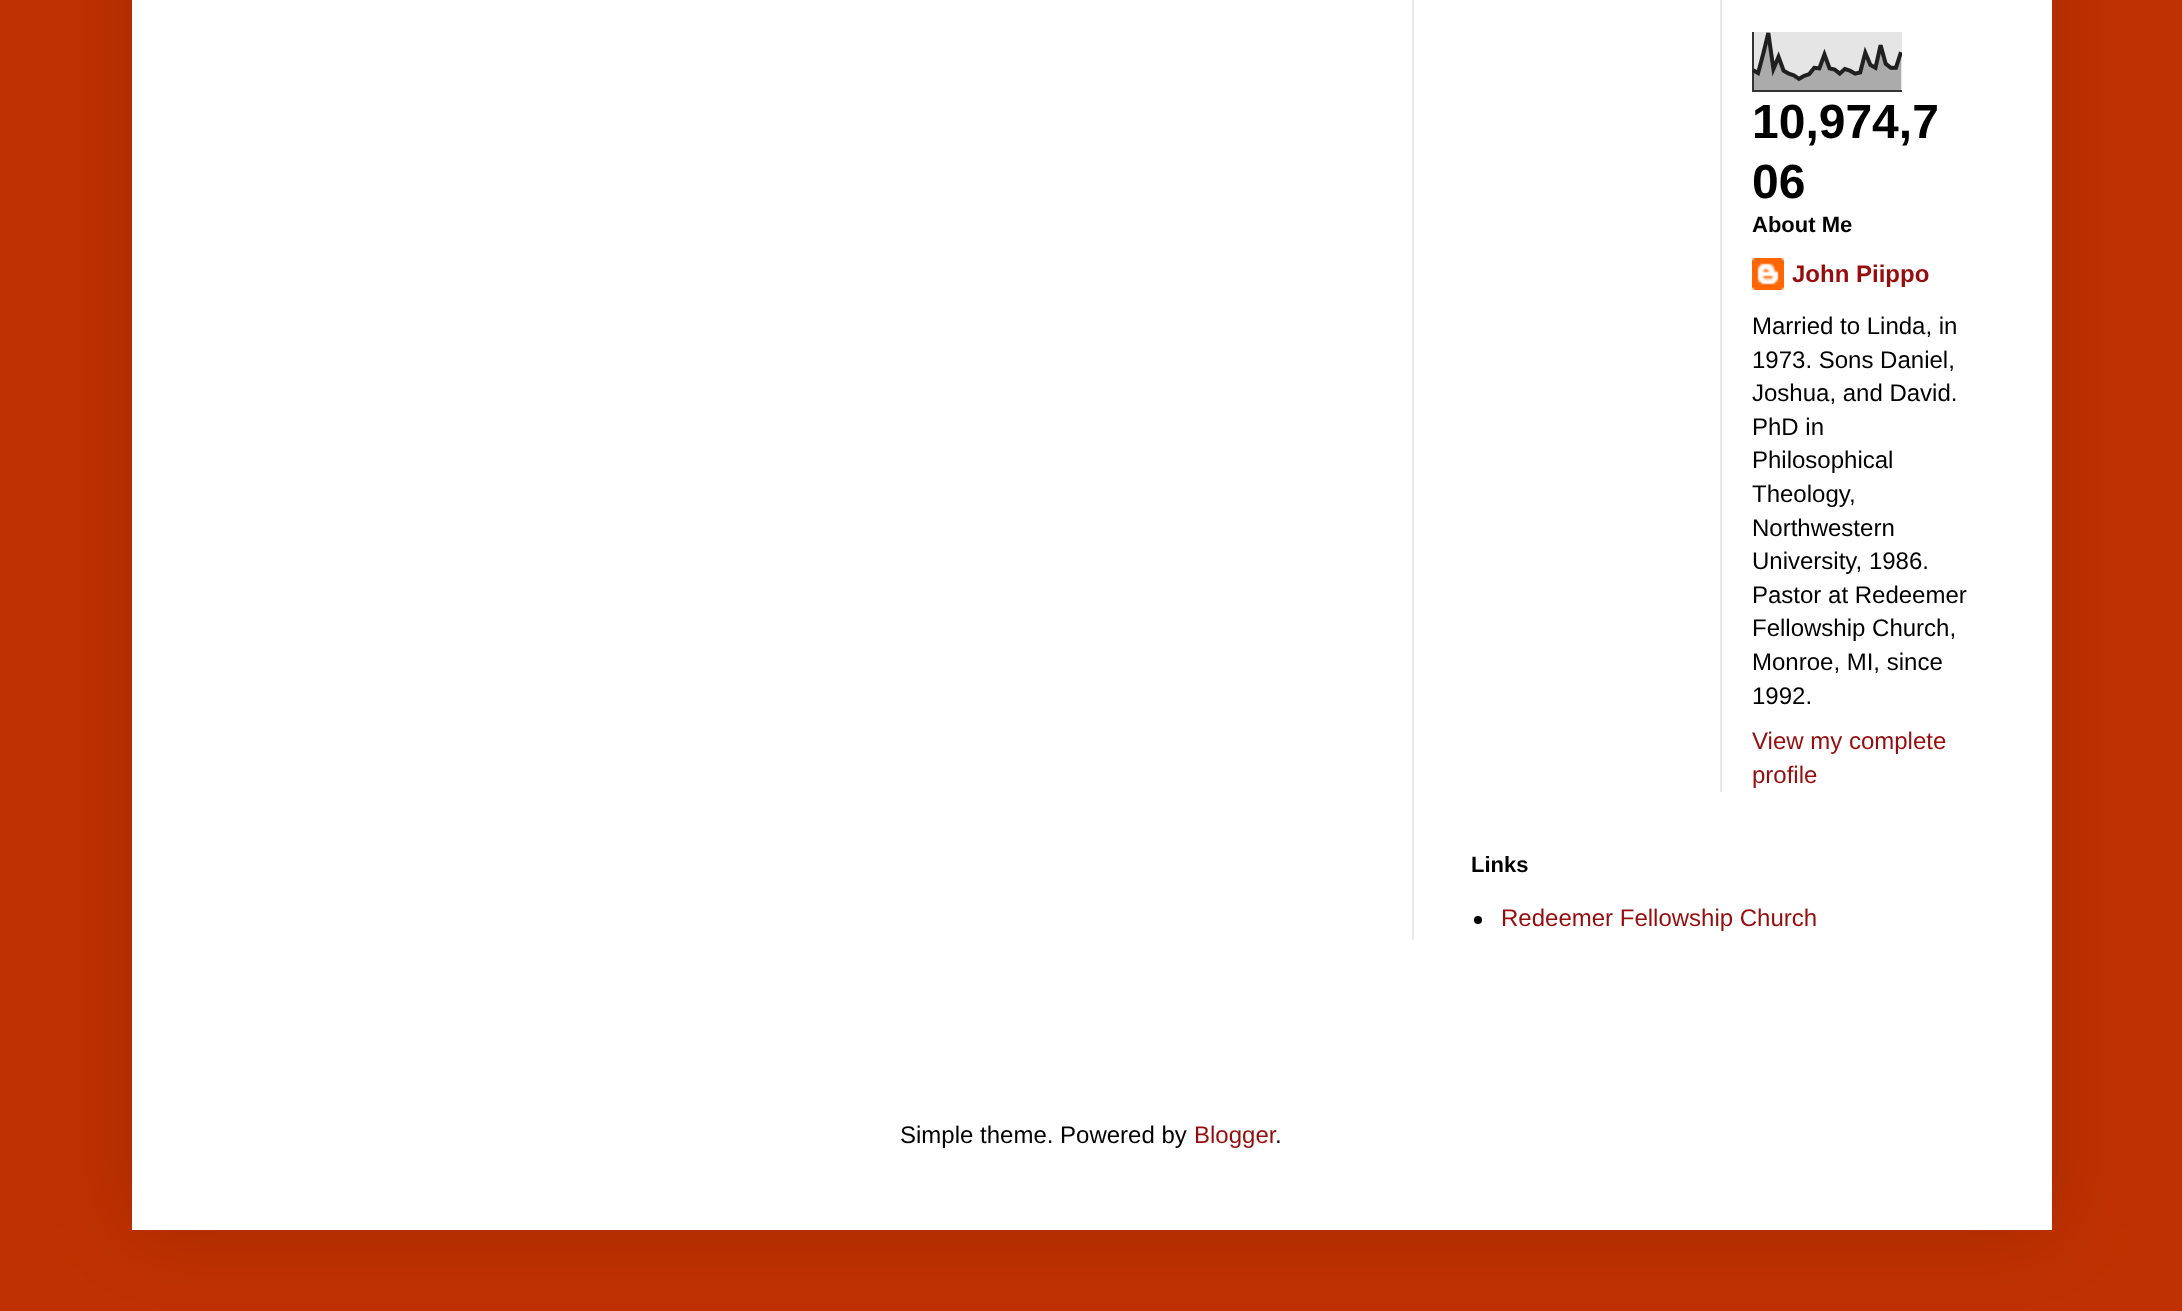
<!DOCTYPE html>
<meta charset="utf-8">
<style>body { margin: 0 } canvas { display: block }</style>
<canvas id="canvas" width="2182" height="1311"></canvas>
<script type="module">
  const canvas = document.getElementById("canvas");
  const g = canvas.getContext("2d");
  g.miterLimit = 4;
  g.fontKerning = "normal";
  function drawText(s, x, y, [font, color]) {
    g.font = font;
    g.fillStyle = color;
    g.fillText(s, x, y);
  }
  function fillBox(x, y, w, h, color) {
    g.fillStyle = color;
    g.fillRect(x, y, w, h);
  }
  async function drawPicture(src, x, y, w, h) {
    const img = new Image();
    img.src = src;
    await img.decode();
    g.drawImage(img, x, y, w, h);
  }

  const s1 = ["bold 48px Liberation Sans", "#000000"];
  const s2 = ["bold 22px Liberation Sans", "#000000"];
  const s3 = ["bold 24px Liberation Sans", "#970C0C"];
  const s4 = ["24px Liberation Sans", "#000000"];
  const s5 = ["24px Liberation Sans", "#970C0C"];

  fillBox(0, 0, 2182, 1311, "#C03100");
  g.fillStyle = "rgba(0, 0, 0, 0.15)";
  g.filter = "blur(40px)";
  g.beginPath();
  g.rect(132, -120, 1920, 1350);
  g.fill();
  g.filter = "none";
  fillBox(132, 0, 1920, 1230, "#FFFFFF");
  fillBox(1412, 0, 2, 940, "#E9E9E9");
  fillBox(1720, 0, 2, 792, "#E9E9E9");
  await drawPicture("pic1.png", 1752, 32, 150, 60);
  drawText("10,974,7", 1752, 138, s1);
  drawText("06", 1752, 198, s1);
  drawText("About Me", 1752, 232, s2);
  await drawPicture("pic2.png", 1752, 258, 32, 32);
  drawText("John Piippo", 1792, 282, s3);
  drawText("Married to Linda, in", 1752, 334, s4);
  drawText("1973. Sons Daniel,", 1752, 368, s4);
  drawText("Joshua, and David.", 1752, 401, s4);
  drawText("PhD in", 1752, 435, s4);
  drawText("Philosophical", 1752, 468, s4);
  drawText("Theology,", 1752, 502, s4);
  drawText("Northwestern", 1752, 536, s4);
  drawText("University, 1986.", 1752, 569, s4);
  drawText("Pastor at Redeemer", 1752, 603, s4);
  drawText("Fellowship Church,", 1752, 636, s4);
  drawText("Monroe, MI, since", 1752, 670, s4);
  drawText("1992.", 1752, 704, s4);
  drawText("View my complete", 1752, 749, s5);
  drawText("profile", 1752, 783, s5);
  drawText("Links", 1471, 872, s2);
  g.beginPath();
  g.arc(1478, 920, 4, 0, Math.PI * 2);
  g.fill();
  drawText("Redeemer Fellowship Church", 1501, 926, s5);
  drawText("Simple theme. Powered by", 900, 1143, s4);
  drawText("Blogger", 1194, 1143, s5);
  drawText(".", 1275, 1143, s4);
</script>
